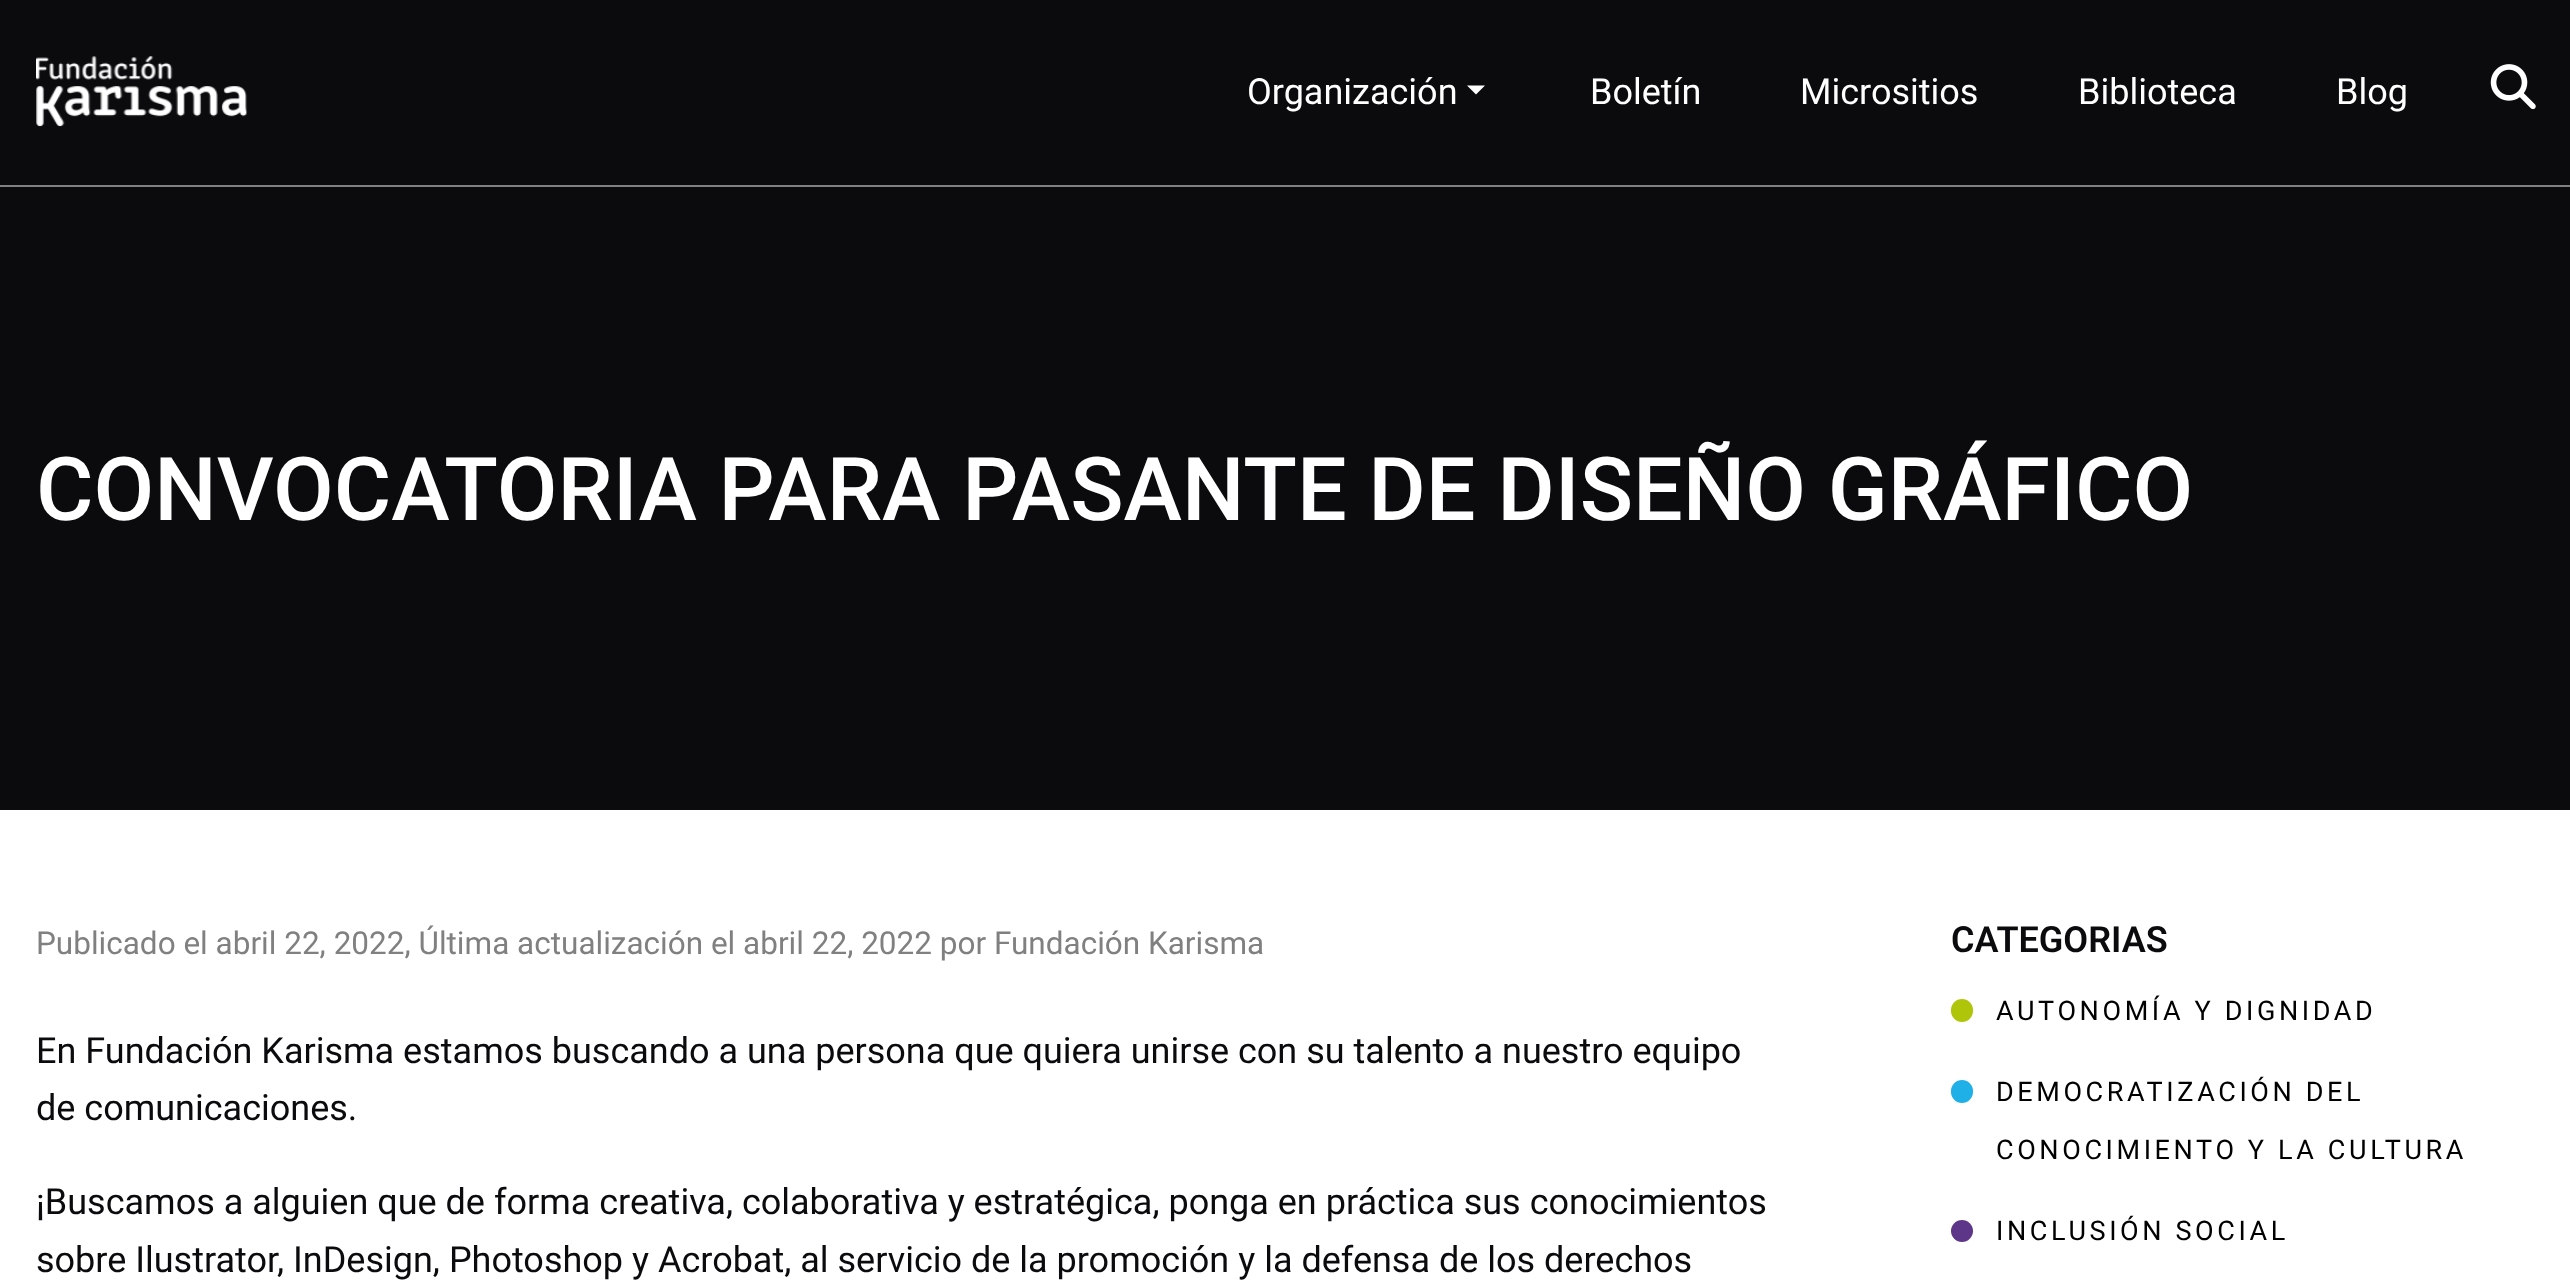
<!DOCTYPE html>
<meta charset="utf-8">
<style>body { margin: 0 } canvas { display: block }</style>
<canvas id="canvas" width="2570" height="1282"></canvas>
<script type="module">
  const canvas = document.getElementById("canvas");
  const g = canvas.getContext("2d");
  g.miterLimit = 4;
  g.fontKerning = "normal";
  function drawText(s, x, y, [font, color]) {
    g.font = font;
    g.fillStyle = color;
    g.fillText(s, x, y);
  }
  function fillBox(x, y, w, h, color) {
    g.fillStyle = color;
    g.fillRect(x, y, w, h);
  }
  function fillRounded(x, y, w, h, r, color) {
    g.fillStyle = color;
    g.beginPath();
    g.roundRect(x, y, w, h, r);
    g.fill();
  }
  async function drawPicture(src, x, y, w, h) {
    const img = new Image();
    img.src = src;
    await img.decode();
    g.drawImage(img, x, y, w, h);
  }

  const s1 = ["36px Roboto", "#FFFFFF"];
  const s2 = ["500 88.1px Roboto", "#FFFFFF"];
  const s3 = ["31.5px Roboto", "#808080"];
  const s4 = ["36px Roboto", "#0B0B0E"];
  const s5 = ["600 36px Roboto", "#0B0B0E"];
  const s6 = ["27px Roboto", "#000000"];

  fillBox(0, 0, 2570, 1282, "#FFFFFF");
  fillBox(0, 0, 2570, 185, "#0B0B0E");
  fillBox(0, 185, 2570, 2, "#808080");
  await drawPicture("pic1.png", 36, 56, 212, 71);
  drawText("Organización", 1247, 104, s1);
  g.beginPath();
  g.moveTo(1467, 85.5);
  g.lineTo(1485, 85.5);
  g.lineTo(1476, 94.5);
  g.closePath();
  g.fill();
  drawText("Boletín", 1590, 104, s1);
  drawText("Micrositios", 1800, 104, s1);
  drawText("Biblioteca", 2078, 104, s1);
  drawText("Blog", 2336, 104, s1);
  await drawPicture("pic2.png", 2490, 64, 46, 46);
  fillBox(0, 187, 2570, 623, "#0B0B0E");
  g.wordSpacing = "-0.25px";
  drawText("CONVOCATORIA PARA PASANTE DE DISEÑO GRÁFICO", 36, 520, s2);
  g.wordSpacing = "0px";
  drawText("Publicado el abril 22, 2022, Última actualización el abril 22, 2022 por Fundación Karisma", 36, 954, s3);
  drawText("En Fundación Karisma estamos buscando a una persona que quiera unirse con su talento a nuestro equipo", 36, 1063, s4);
  drawText("de comunicaciones.", 36, 1120, s4);
  drawText("¡Buscamos a alguien que de forma creativa, colaborativa y estratégica, ponga en práctica sus conocimientos", 36, 1214, s4);
  drawText("sobre Ilustrator, InDesign, Photoshop y Acrobat, al servicio de la promoción y la defensa de los derechos", 36, 1272, s4);
  drawText("CATEGORIAS", 1951, 952, s5);
  fillRounded(1951, 999, 22, 23, 11, "#AFC509");
  g.letterSpacing = "3.6px";
  drawText("AUTONOMÍA Y DIGNIDAD", 1996, 1020, s6);
  fillRounded(1951, 1080, 22, 23, 11, "#1EB0E7");
  drawText("DEMOCRATIZACIÓN DEL", 1996, 1101, s6);
  drawText("CONOCIMIENTO Y LA CULTURA", 1996, 1159, s6);
  g.fillStyle = "#5E3689";
  g.beginPath();
  g.arc(1962, 1231, 11, 0, Math.PI * 2);
  g.fill();
  drawText("INCLUSIÓN SOCIAL", 1996, 1240, s6);
</script>
